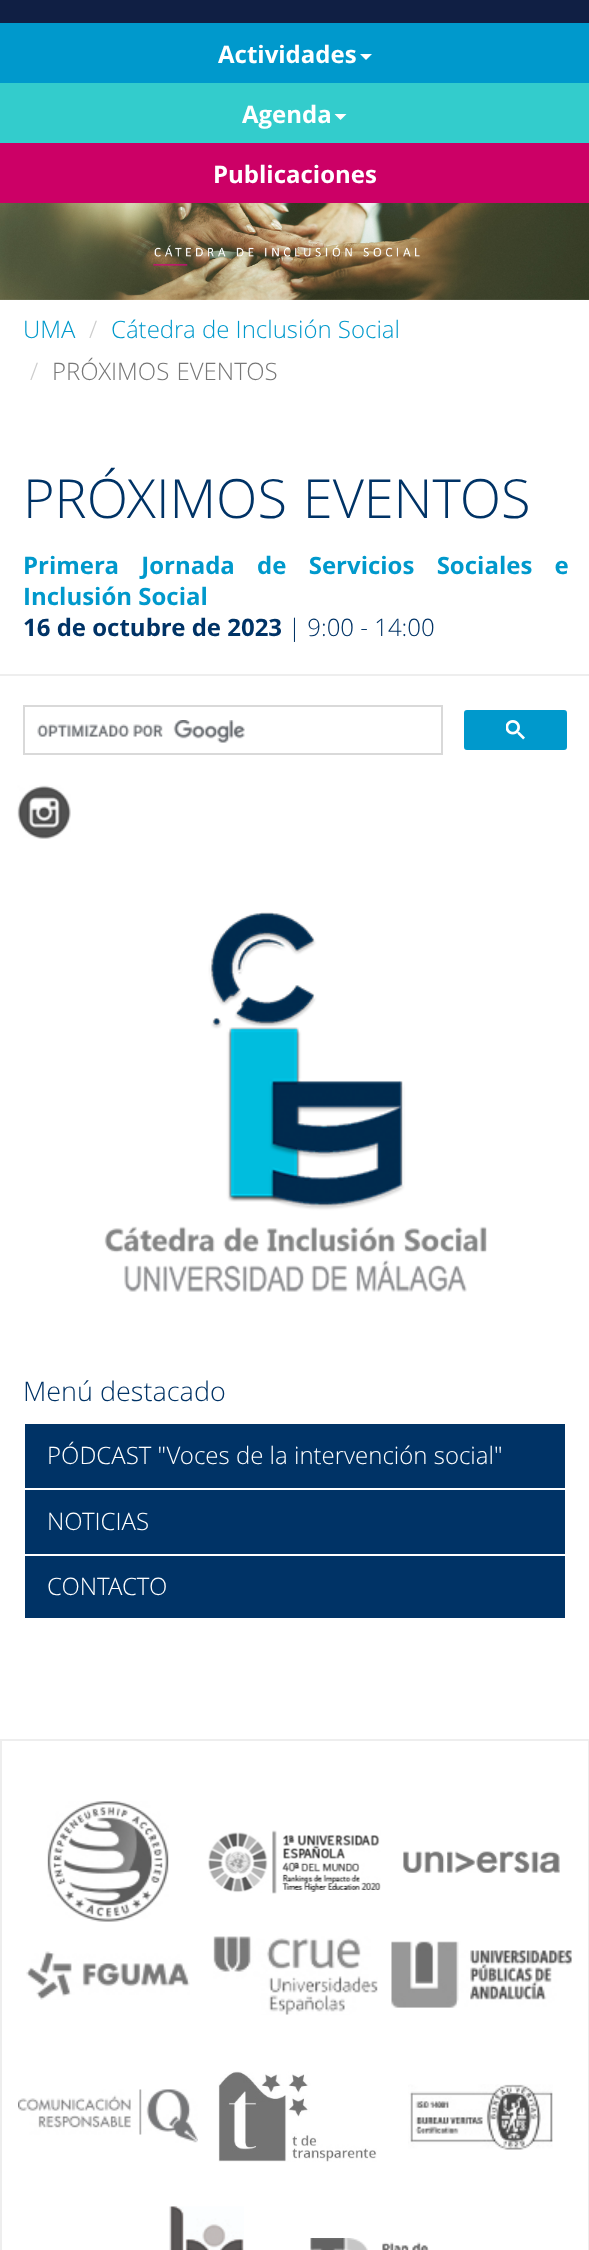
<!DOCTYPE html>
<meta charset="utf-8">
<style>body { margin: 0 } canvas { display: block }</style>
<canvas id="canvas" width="589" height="2250"></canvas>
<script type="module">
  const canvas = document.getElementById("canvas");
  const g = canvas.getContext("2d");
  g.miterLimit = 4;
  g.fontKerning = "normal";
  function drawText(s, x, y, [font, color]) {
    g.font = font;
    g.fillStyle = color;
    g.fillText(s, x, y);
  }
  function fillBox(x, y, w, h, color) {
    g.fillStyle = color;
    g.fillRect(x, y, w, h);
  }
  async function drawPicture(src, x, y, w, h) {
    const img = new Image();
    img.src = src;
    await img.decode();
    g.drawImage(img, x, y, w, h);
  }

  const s1 = ["bold 24px Open Sans", "#FFFFFF"];
  const s2 = ["300 24px Open Sans", "#0099CC"];
  const s3 = ["300 24px Open Sans", "#CCCCCC"];
  const s4 = ["300 24px Open Sans", "#777777"];
  const s5 = ["300 54px Open Sans", "#003366"];
  const s6 = ["bold 24px Open Sans", "#0099CC"];
  const s7 = ["bold 24px Open Sans", "#003366"];
  const s8 = ["300 24px Open Sans", "#003366"];
  const s9 = ["300 27px Open Sans", "#003366"];
  const s10 = ["300 24px Open Sans", "#FFFFFF"];

  fillBox(0, 0, 589, 2250, "#FFFFFF");
  fillBox(0, 0, 589, 23, "#101F44");
  fillBox(0, 23, 589, 60, "#0099CC");
  drawText("Actividades", 218, 63, s1);
  g.beginPath();
  g.moveTo(360, 54);
  g.lineTo(372, 54);
  g.lineTo(366, 60);
  g.closePath();
  g.fill();
  fillBox(0, 83, 589, 60, "#33CCCC");
  drawText("Agenda", 242, 123, s1);
  g.beginPath();
  g.moveTo(334.5, 114);
  g.lineTo(346.5, 114);
  g.lineTo(340.5, 120);
  g.closePath();
  g.fill();
  fillBox(0, 143, 589, 60, "#CC0066");
  drawText("Publicaciones", 213, 183, s1);
  await drawPicture("pic1.png", 0, 203, 589, 97);
  drawText("UMA", 23, 338, s2);
  drawText("/", 89, 338, s3);
  drawText("Cátedra de Inclusión Social", 111, 338, s2);
  drawText("/", 30, 380, s3);
  g.wordSpacing = "1px";
  drawText("PRÓXIMOS EVENTOS", 52, 380, s4);
  g.wordSpacing = "2px";
  drawText("PRÓXIMOS EVENTOS", 23, 518, s5);
  g.wordSpacing = "16px";
  drawText("Primera Jornada de Servicios Sociales e", 23, 574, s6);
  g.wordSpacing = "0px";
  drawText("Inclusión Social", 23, 605, s6);
  drawText("16 de octubre de 2023", 23, 636, s7);
  drawText("| 9:00 - 14:00", 288, 636, s8);
  fillBox(0, 674, 589, 2, "#EEEEEE");
  g.strokeStyle = "#D9D9D9";
  g.lineWidth = 2;
  g.strokeRect(24, 706, 418, 48);
  await drawPicture("pic2.png", 37, 720, 208, 23);
  g.fillStyle = "#0099CC";
  g.beginPath();
  g.roundRect(465, 711, 101, 38, 2);
  g.fill();
  g.strokeStyle = "#0099CC";
  g.stroke();
  await drawPicture("pic3.png", 506, 720, 19, 20);
  await drawPicture("pic4.png", 17, 785, 54, 54);
  await drawPicture("pic5.png", 104, 912, 383, 380);
  drawText("Menú destacado", 23, 1401, s9);
  fillBox(25, 1424, 540, 64, "#003366");
  drawText("PÓDCAST \"Voces de la intervención social\"", 47, 1464, s10);
  fillBox(25, 1490, 540, 64, "#003366");
  drawText("NOTICIAS", 47, 1530, s10);
  fillBox(25, 1556, 540, 62, "#003366");
  drawText("CONTACTO", 47, 1595, s10);
  g.strokeStyle = "#EEEEEE";
  g.strokeRect(1, 1740, 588, 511);
  await drawPicture("pic6.png", 47, 1801, 122, 121);
  await drawPicture("pic7.png", 208, 1830, 173, 64);
  await drawPicture("pic8.png", 403, 1851, 157, 22);
  await drawPicture("pic9.png", 26, 1951, 164, 49);
  await drawPicture("pic10.png", 213, 1936, 165, 79);
  await drawPicture("pic11.png", 391, 1941, 181, 67);
  await drawPicture("pic12.png", 18, 2089, 180, 54);
  await drawPicture("pic13.png", 218, 2071, 159, 91);
  await drawPicture("pic14.png", 408, 2084, 145, 66);
  await drawPicture("pic15.png", 169, 2206, 75, 44);
  await drawPicture("pic16.png", 310, 2238, 119, 12);
</script>
